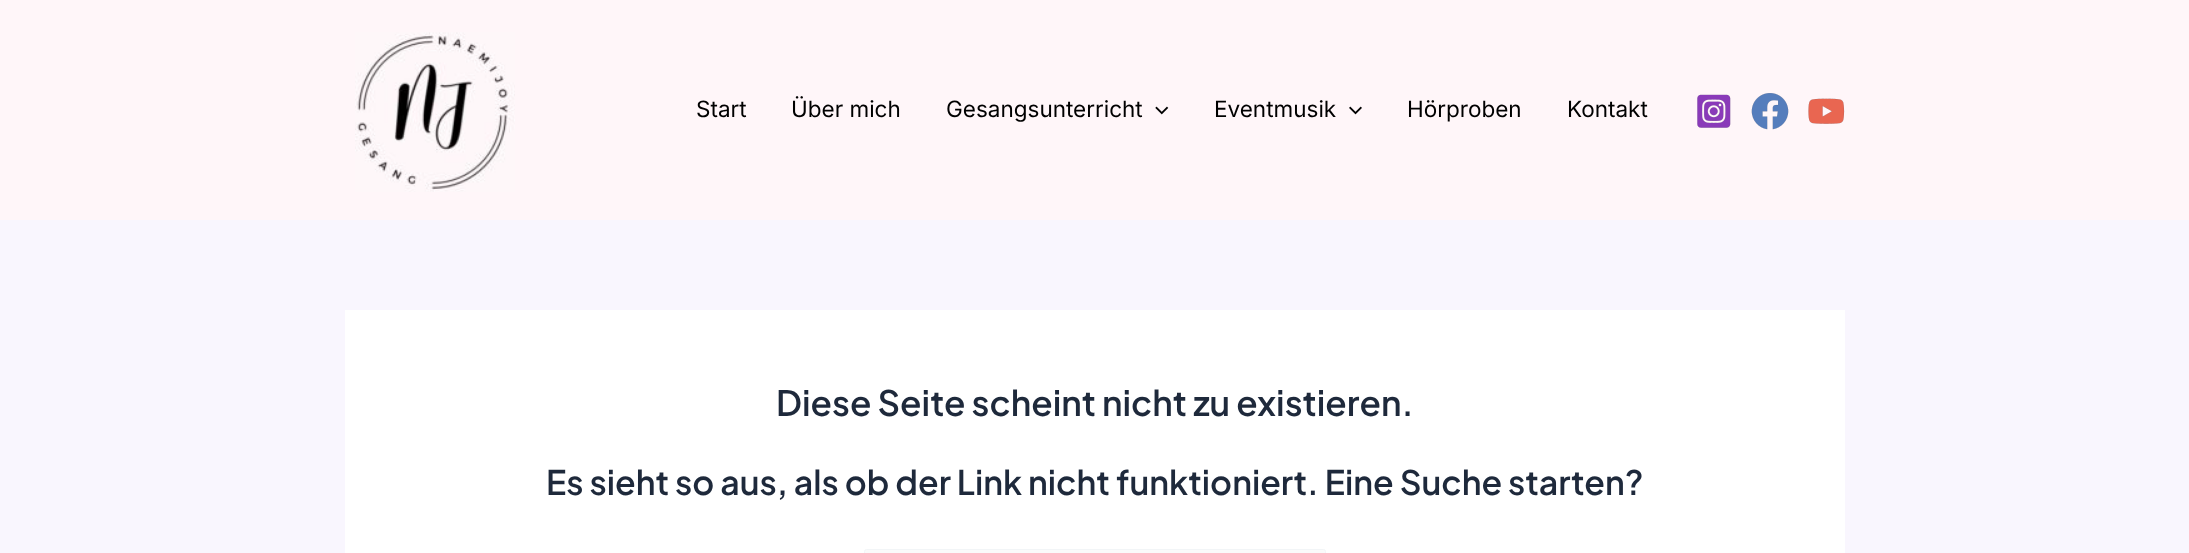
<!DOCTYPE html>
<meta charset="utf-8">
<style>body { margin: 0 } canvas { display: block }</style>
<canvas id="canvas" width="2189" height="553"></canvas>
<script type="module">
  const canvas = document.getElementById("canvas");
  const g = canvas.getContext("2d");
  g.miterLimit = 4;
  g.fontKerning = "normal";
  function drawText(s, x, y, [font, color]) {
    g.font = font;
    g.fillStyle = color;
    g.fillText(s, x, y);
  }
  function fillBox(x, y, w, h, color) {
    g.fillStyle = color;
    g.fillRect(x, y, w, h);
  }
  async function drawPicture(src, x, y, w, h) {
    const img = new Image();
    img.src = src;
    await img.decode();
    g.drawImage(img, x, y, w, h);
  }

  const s1 = ["22.5px Inter", "#000000"];
  const s2 = ["600 35px Plus Jakarta Sans", "#1E293B"];
  const s3 = ["600 33.75px Plus Jakarta Sans", "#1E293B"];

  fillBox(0, 0, 2189, 553, "#F9F6FE");
  fillBox(0, 0, 2189, 220, "#FFF6F9");
  await drawPicture("pic1.png", 355, 32, 160, 160);
  drawText("Start", 696, 117, s1);
  drawText("Über mich", 791, 117, s1);
  drawText("Gesangsunterricht", 946, 117, s1);
  await drawPicture("pic2.png", 1155, 106, 14, 9);
  drawText("Eventmusik", 1214, 117, s1);
  await drawPicture("pic3.png", 1349, 106, 13, 9);
  drawText("Hörproben", 1407, 117, s1);
  drawText("Kontakt", 1567, 117, s1);
  await drawPicture("pic4.png", 1697, 94, 34, 34);
  await drawPicture("pic5.png", 1751, 93, 38, 37);
  await drawPicture("pic6.png", 1808, 98, 37, 26);
  fillBox(345, 310, 1500, 243, "#FFFFFF");
  drawText("Diese Seite scheint nicht zu existieren.", 776, 416, s2);
  drawText("Es sieht so aus, als ob der Link nicht funktioniert. Eine Suche starten?", 546, 495, s3);
  g.fillStyle = "#FAFAFA";
  g.beginPath();
  g.roundRect(864.5, 549.5, 461, 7, 2);
  g.fill();
  g.strokeStyle = "#F2F5F7";
  g.stroke();
</script>
